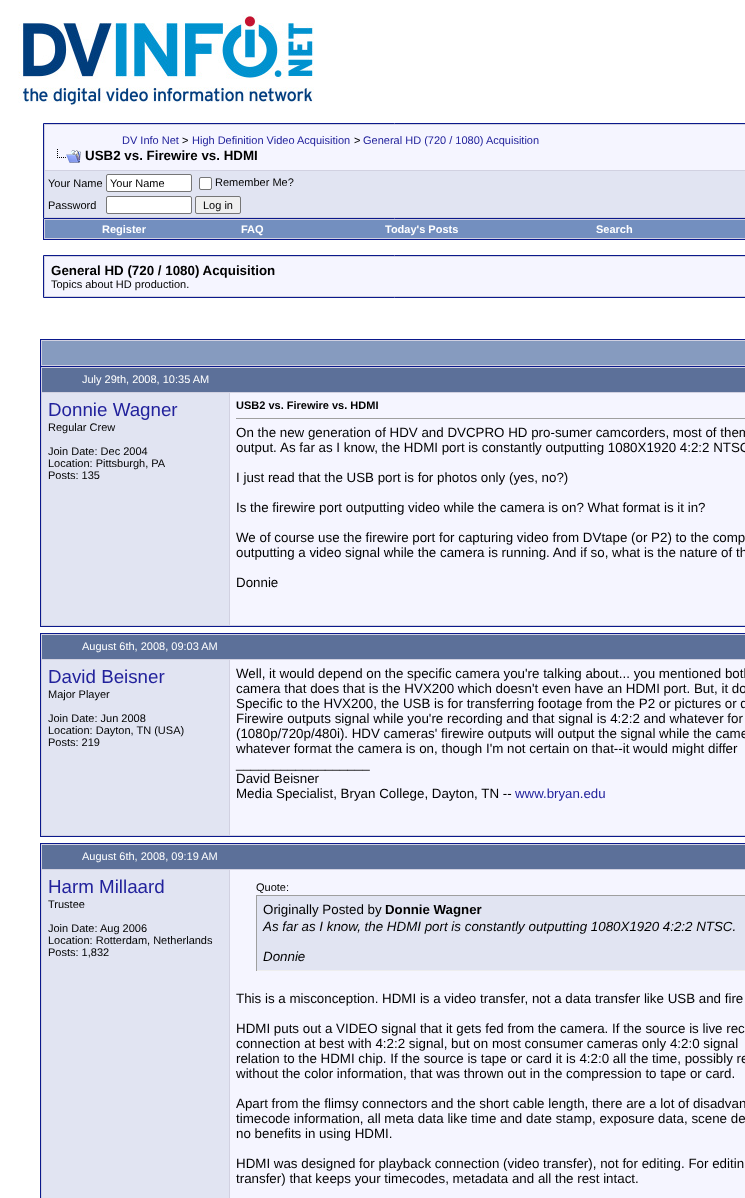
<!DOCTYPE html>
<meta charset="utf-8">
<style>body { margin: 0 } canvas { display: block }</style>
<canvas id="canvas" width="745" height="1198"></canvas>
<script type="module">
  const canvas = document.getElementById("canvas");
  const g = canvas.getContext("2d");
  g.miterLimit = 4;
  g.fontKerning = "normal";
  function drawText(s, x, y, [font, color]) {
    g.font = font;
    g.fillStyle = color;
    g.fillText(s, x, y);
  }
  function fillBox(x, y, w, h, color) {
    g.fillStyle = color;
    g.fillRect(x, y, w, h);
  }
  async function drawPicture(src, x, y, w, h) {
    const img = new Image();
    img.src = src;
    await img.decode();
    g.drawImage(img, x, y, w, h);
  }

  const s1 = ["11px Liberation Sans", "#22229C"];
  const s2 = ["11px Liberation Sans", "#000000"];
  const s3 = ["bold 13.35px Liberation Sans", "#000000"];
  const s4 = ["bold 11px Liberation Sans", "#FFFFFF"];
  const s5 = ["11px Liberation Sans", "#FFFFFF"];
  const s6 = ["18.75px Liberation Sans", "#22229C"];
  const s7 = ["bold 11px Liberation Sans", "#000000"];
  const s8 = ["13.35px Liberation Sans", "#000000"];
  const s9 = ["13.25px Liberation Sans", "#22229C"];
  const s10 = ["bold 13.25px Liberation Sans", "#000000"];
  const s11 = ["italic 13.35px Liberation Sans", "#000000"];

  fillBox(0, 0, 745, 1198, "#FFFFFF");
  await drawPicture("pic1.png", 18, 15, 296, 90);
  g.fillStyle = "#D1D1E1";
  g.beginPath();
  g.rect(43.5, 123.5, 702, 95);
  g.fill();
  g.strokeStyle = "#0B198C";
  g.stroke();
  fillBox(45, 125, 700, 45, "#F5F5FF");
  drawText("DV Info Net", 122, 144, s1);
  drawText(">", 182, 144, s2);
  drawText("High Definition Video Acquisition", 192, 144, s1);
  drawText(">", 354, 144, s2);
  drawText("General HD (720 / 1080) Acquisition", 363, 144, s1);
  await drawPicture("pic2.png", 57, 149, 24, 14);
  drawText("USB2 vs. Firewire vs. HDMI", 85, 160, s3);
  fillBox(45, 171, 700, 46, "#E1E4F2");
  drawText("Your Name", 48, 187, s2);
  g.fillStyle = "#FFFFFF";
  g.beginPath();
  g.roundRect(106.5, 174.5, 85, 17, 1.5);
  g.fill();
  g.strokeStyle = "#767676";
  g.stroke();
  drawText("Your Name", 110, 187, s2);
  g.fillStyle = "#FFFFFF";
  g.beginPath();
  g.roundRect(199.5, 177.5, 12, 12, 1.5);
  g.fill();
  g.stroke();
  drawText("Remember Me?", 215, 186, s2);
  drawText("Password", 48, 209, s2);
  g.fillStyle = "#FFFFFF";
  g.beginPath();
  g.roundRect(106.5, 196.5, 85, 17, 1.5);
  g.fill();
  g.stroke();
  g.fillStyle = "#EFEFEF";
  g.beginPath();
  g.roundRect(195.5, 196.5, 45, 17, 1.5);
  g.fill();
  g.stroke();
  drawText("Log in", 203, 209, s2);
  fillBox(44, 219, 701, 20, "#D1D1E1");
  fillBox(43, 239, 702, 1, "#0B198C");
  fillBox(43, 219, 1, 21, "#0B198C");
  fillBox(45, 220, 700, 18, "#738FBF");
  drawText("Register", 102, 233, s4);
  drawText("FAQ", 241, 233, s4);
  drawText("Today's Posts", 385, 233, s4);
  drawText("Search", 596, 233, s4);
  g.fillStyle = "#D1D1E1";
  g.beginPath();
  g.rect(43.5, 255.5, 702, 42);
  g.fill();
  g.strokeStyle = "#0B198C";
  g.stroke();
  fillBox(45, 257, 700, 39, "#F5F5FF");
  drawText("General HD (720 / 1080) Acquisition", 51, 275, s3);
  drawText("Topics about HD production.", 51, 288, s2);
  fillBox(41, 340, 704, 26, "#D1D1E1");
  fillBox(40, 339, 705, 1, "#0B198C");
  fillBox(40, 339, 1, 27, "#0B198C");
  fillBox(42, 341, 703, 24, "#869BBF");
  g.strokeRect(40.5, 366.5, 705, 260);
  fillBox(42, 368, 703, 24, "#5C7099");
  fillBox(41, 367, 704, 1, "#D1D1E1");
  fillBox(41, 392, 704, 1, "#D1D1E1");
  fillBox(41, 367, 1, 229, "#D1D1E1");
  drawText("July 29th, 2008, 10:35 AM", 82, 383, s5);
  fillBox(42, 393, 187, 232, "#E1E4F2");
  fillBox(229, 393, 1, 233, "#D1D1E1");
  drawText("Donnie Wagner", 48, 416, s6);
  drawText("Regular Crew", 48, 431, s2);
  drawText("Join Date: Dec 2004", 48, 455, s2);
  drawText("Location: Pittsburgh, PA", 48, 467, s2);
  drawText("Posts: 135", 48, 479, s2);
  fillBox(230, 393, 515, 232, "#F5F5FF");
  drawText("USB2 vs. Firewire vs. HDMI", 236, 409, s7);
  fillBox(236, 418, 509, 1, "#9F9F9F");
  drawText("On the new generation of HDV and DVCPRO HD pro-sumer camcorders, most of them", 236, 437, s8);
  drawText("output.", 236, 452, s8);
  drawText("As far as I know, the HDMI port is constantly outputting 1080X1920 4:2:2 NTSC", 280, 452, s8);
  drawText("I just read that the USB port is for photos only (yes, no?)", 236, 482, s8);
  drawText("Is the firewire port outputting video while the camera is on? What format is it in?", 236, 512, s8);
  drawText("We of course use the firewire port for capturing video from DVtape (or P2) to the comp", 236, 542, s8);
  drawText("outputting a video signal while the camera is running. And if so, what is the nature of th", 236, 557, s8);
  drawText("Donnie", 236, 587, s8);
  fillBox(41, 625, 704, 1, "#D1D1E1");
  fillBox(41, 596, 1, 30, "#D1D1E1");
  g.strokeRect(40.5, 633.5, 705, 203);
  fillBox(42, 635, 703, 24, "#5C7099");
  fillBox(41, 634, 704, 1, "#D1D1E1");
  fillBox(41, 659, 704, 1, "#D1D1E1");
  fillBox(41, 634, 1, 173, "#D1D1E1");
  drawText("August 6th, 2008, 09:03 AM", 82, 650, s5);
  fillBox(42, 660, 187, 175, "#E1E4F2");
  fillBox(229, 660, 1, 176, "#D1D1E1");
  drawText("David Beisner", 48, 683, s6);
  drawText("Major Player", 48, 698, s2);
  drawText("Join Date: Jun 2008", 48, 722, s2);
  drawText("Location: Dayton, TN (USA)", 48, 734, s2);
  drawText("Posts: 219", 48, 746, s2);
  fillBox(230, 660, 515, 175, "#F5F5FF");
  drawText("Well, it would depend on the specific camera you're talking about... you mentioned both", 236, 678, s8);
  drawText("camera that does that is the HVX200 which doesn't even have an HDMI port. But, it do", 236, 693, s8);
  drawText("Specific to the HVX200, the USB is for transferring footage from the P2 or pictures or d", 236, 708, s8);
  drawText("Firewire outputs signal while you're recording and that signal is 4:2:2 and whatever for", 236, 723, s8);
  drawText("(1080p/720p/480i). HDV cameras' firewire outputs will output the signal while the came", 236, 738, s8);
  drawText("whatever format the camera is on, though I'm not certain on that--it would might differ", 236, 753, s8);
  drawText("__________________", 236, 768, s8);
  drawText("David Beisner", 236, 783, s8);
  drawText("Media Specialist, Bryan College, Dayton, TN --", 236, 798, s8);
  drawText("www.bryan.edu", 515, 798, s9);
  fillBox(41, 835, 704, 1, "#D1D1E1");
  fillBox(41, 807, 1, 29, "#D1D1E1");
  g.strokeRect(40.5, 843.5, 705, 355);
  fillBox(42, 845, 703, 24, "#5C7099");
  fillBox(41, 844, 704, 1, "#D1D1E1");
  fillBox(41, 869, 704, 1, "#D1D1E1");
  fillBox(41, 844, 1, 348, "#D1D1E1");
  drawText("August 6th, 2008, 09:19 AM", 82, 860, s5);
  fillBox(42, 870, 187, 322, "#E1E4F2");
  fillBox(229, 870, 1, 322, "#D1D1E1");
  drawText("Harm Millaard", 48, 893, s6);
  drawText("Trustee", 48, 908, s2);
  drawText("Join Date: Aug 2006", 48, 932, s2);
  drawText("Location: Rotterdam, Netherlands", 48, 944, s2);
  drawText("Posts: 1,832", 48, 956, s2);
  fillBox(230, 870, 515, 328, "#F5F5FF");
  drawText("Quote:", 256, 891, s2);
  fillBox(257, 896, 488, 74, "#E1E4F2");
  fillBox(256, 895, 489, 1, "#9F9F9F");
  fillBox(256, 970, 489, 1, "#EEEEEE");
  fillBox(256, 895, 1, 76, "#9F9F9F");
  drawText("Originally Posted by", 263, 914, s8);
  drawText("Donnie Wagner", 385, 914, s10);
  drawText("As far as I know, the HDMI port is constantly outputting 1080X1920 4:2:2 NTSC.", 263, 931, s11);
  drawText("Donnie", 263, 961, s11);
  drawText("This is a misconception. HDMI is a video transfer, not a data transfer like USB and fire", 236, 1003, s8);
  drawText("HDMI puts out a VIDEO signal that it gets fed from the camera. If the source is live rec", 236, 1033, s8);
  drawText("connection at best with 4:2:2 signal, but on most consumer cameras only 4:2:0 signal", 236, 1048, s8);
  drawText("relation to the HDMI chip. If the source is tape or card it is 4:2:0 all the time, possibly re", 236, 1063, s8);
  drawText("without the color information, that was thrown out in the compression to tape or card.", 236, 1078, s8);
  drawText("Apart from the flimsy connectors and the short cable length, there are a lot of disadvan", 236, 1108, s8);
  drawText("timecode information, all meta data like time and date stamp, exposure data, scene de", 236, 1123, s8);
  drawText("no benefits in using HDMI.", 236, 1138, s8);
  drawText("HDMI was designed for playback connection (video transfer), not for editing. For editin", 236, 1168, s8);
  drawText("transfer) that keeps your timecodes, metadata and all the rest intact.", 236, 1183, s8);
  fillBox(41, 1192, 189, 6, "#E1E4F2");
  fillBox(229, 1192, 1, 6, "#D1D1E1");
  fillBox(41, 1192, 1, 6, "#D1D1E1");
</script>
